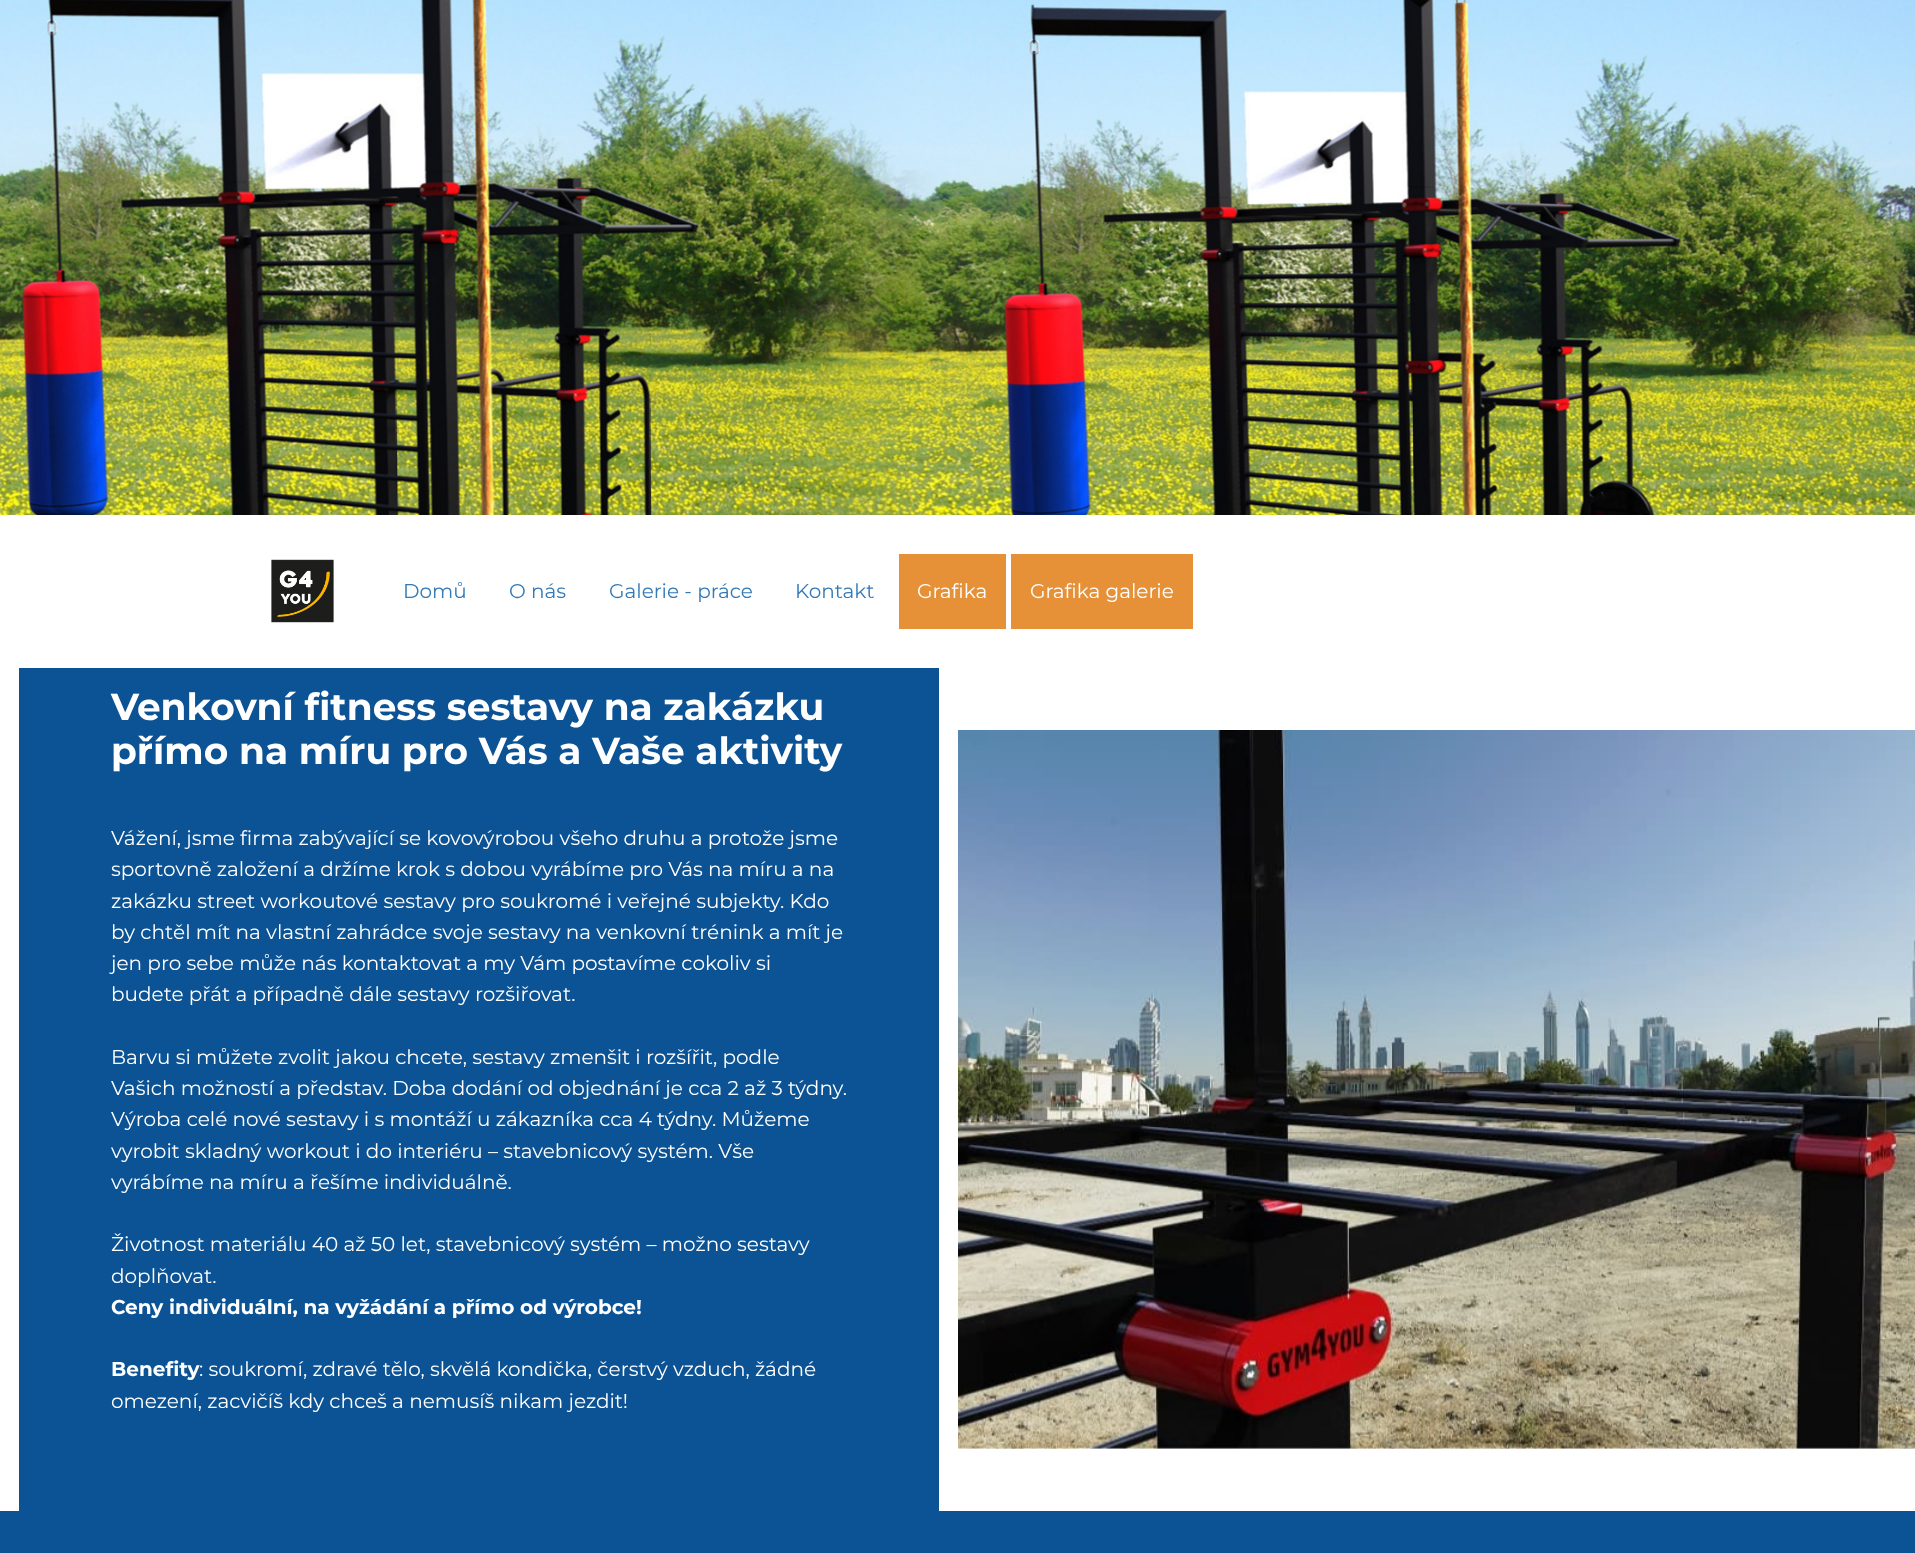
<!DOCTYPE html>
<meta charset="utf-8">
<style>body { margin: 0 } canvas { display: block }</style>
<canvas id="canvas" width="1915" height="1553"></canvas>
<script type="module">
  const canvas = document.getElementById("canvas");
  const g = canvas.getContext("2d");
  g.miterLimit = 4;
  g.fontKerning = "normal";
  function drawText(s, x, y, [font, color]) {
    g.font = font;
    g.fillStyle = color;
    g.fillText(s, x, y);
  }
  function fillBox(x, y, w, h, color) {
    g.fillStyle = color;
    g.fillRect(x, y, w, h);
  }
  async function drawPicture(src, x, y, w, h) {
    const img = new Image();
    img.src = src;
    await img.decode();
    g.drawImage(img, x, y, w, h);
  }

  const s1 = ["100 20px Montserrat", "#337AB7"];
  const s2 = ["100 20px Montserrat", "#FFFFFF"];
  const s3 = ["bold 37.5px Montserrat", "#FFFFFF"];
  const s4 = ["bold 20px Montserrat", "#FFFFFF"];

  fillBox(0, 0, 1915, 1553, "#FFFFFF");
  await drawPicture("pic1.png", 0, 0, 1915, 515);
  await drawPicture("pic2.png", 271, 559, 63, 64);
  drawText("Domů", 403, 598, s1);
  drawText("O nás", 509, 598, s1);
  drawText("Galerie - práce", 609, 598, s1);
  drawText("Kontakt", 795, 598, s1);
  fillBox(899, 554, 107, 75, "#E69138");
  drawText("Grafika", 917, 598, s2);
  fillBox(1011, 554, 182, 75, "#E69138");
  drawText("Grafika galerie", 1030, 598, s2);
  fillBox(19, 668, 920, 843, "#0B5394");
  drawText("Venkovní fitness sestavy na zakázku", 111, 720, s3);
  drawText("přímo na míru pro Vás a Vaše aktivity", 111, 764, s3);
  drawText("Vážení, jsme firma zabývající se kovovýrobou všeho druhu a protože jsme", 111, 845, s2);
  drawText("sportovně založení a držíme krok s dobou vyrábíme pro Vás na míru a na", 111, 876, s2);
  drawText("zakázku street workoutové sestavy pro soukromé i veřejné subjekty. Kdo", 111, 908, s2);
  drawText("by chtěl mít na vlastní zahrádce svoje sestavy na venkovní trénink a mít je", 111, 939, s2);
  drawText("jen pro sebe může nás kontaktovat a my Vám postavíme cokoliv si", 111, 970, s2);
  drawText("budete přát a případně dále sestavy rozšiřovat.", 111, 1001, s2);
  drawText("Barvu si můžete zvolit jakou chcete, sestavy zmenšit i rozšířit, podle", 111, 1064, s2);
  drawText("Vašich možností a představ. Doba dodání od objednání je cca 2 až 3 týdny.", 111, 1095, s2);
  drawText("Výroba celé nové sestavy i s montáží u zákazníka cca 4 týdny. Můžeme", 111, 1126, s2);
  drawText("vyrobit skladný workout i do interiéru – stavebnicový systém. Vše", 111, 1158, s2);
  drawText("vyrábíme na míru a řešíme individuálně.", 111, 1189, s2);
  drawText("Životnost materiálu 40 až 50 let, stavebnicový systém – možno sestavy", 111, 1251, s2);
  drawText("doplňovat.", 111, 1283, s2);
  drawText("Ceny individuální, na vyžádání a přímo od výrobce!", 111, 1314, s4);
  drawText("Benefity", 111, 1376, s4);
  drawText(": soukromí, zdravé tělo, skvělá kondička, čerstvý vzduch, žádné", 199, 1376, s2);
  drawText("omezení, zacvičíš kdy chceš a nemusíš nikam jezdit!", 111, 1408, s2);
  await drawPicture("pic3.png", 958, 730, 957, 719);
  fillBox(0, 1511, 1915, 42, "#0B5394");
</script>
